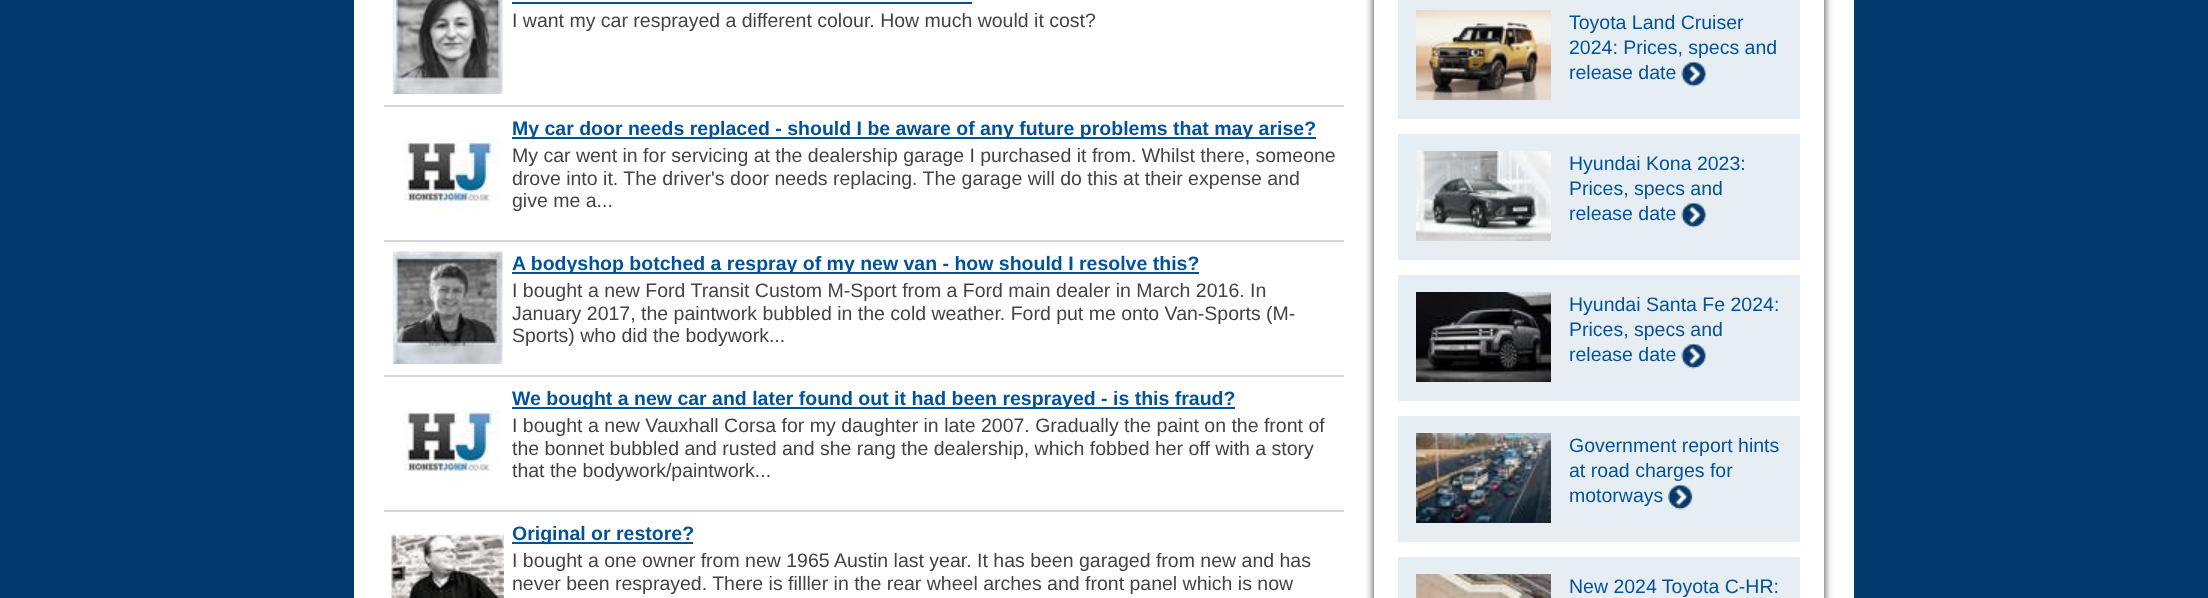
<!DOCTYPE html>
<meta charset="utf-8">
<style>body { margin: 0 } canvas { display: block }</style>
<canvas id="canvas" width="2208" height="598"></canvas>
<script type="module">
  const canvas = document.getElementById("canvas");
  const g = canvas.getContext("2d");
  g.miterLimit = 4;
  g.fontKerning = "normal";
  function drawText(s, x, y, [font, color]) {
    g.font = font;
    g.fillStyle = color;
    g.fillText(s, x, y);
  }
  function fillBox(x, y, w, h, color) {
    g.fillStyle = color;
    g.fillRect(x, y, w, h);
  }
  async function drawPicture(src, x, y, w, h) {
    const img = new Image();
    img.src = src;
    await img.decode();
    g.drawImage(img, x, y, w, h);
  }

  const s1 = ["19.5px Liberation Sans", "#434343"];
  const s2 = ["bold 19.5px Liberation Sans", "#00529B"];
  const s3 = ["19.5px Liberation Sans", "#00529B"];

  fillBox(0, 0, 2208, 598, "#023A6D");
  fillBox(354, 0, 1500, 598, "#FFFFFF");
  fillBox(384, 105, 960, 2, "#D6D6D6");
  await drawPicture("pic1.png", 391, 0, 113, 94);
  fillBox(512, 2, 460, 2, "#00529B");
  drawText("I want my car resprayed a different colour. How much would it cost?", 512, 27, s1);
  fillBox(384, 240, 960, 2, "#D6D6D6");
  fillBox(512, 137, 804, 2, "#00529B");
  drawText("My car door needs replaced - should I be aware of any future problems that may arise?", 512, 135, s2);
  await drawPicture("pic2.png", 404, 139, 100, 73);
  drawText("My car went in for servicing at the dealership garage I purchased it from. Whilst there, someone", 512, 162, s1);
  drawText("drove into it. The driver's door needs replacing. The garage will do this at their expense and", 512, 185, s1);
  drawText("give me a...", 512, 207, s1);
  fillBox(384, 375, 960, 2, "#D6D6D6");
  await drawPicture("pic3.png", 391, 251, 113, 113);
  fillBox(512, 272, 687, 2, "#00529B");
  drawText("A bodyshop botched a respray of my new van - how should I resolve this?", 512, 270, s2);
  drawText("I bought a new Ford Transit Custom M-Sport from a Ford main dealer in March 2016. In", 512, 297, s1);
  drawText("January 2017, the paintwork bubbled in the cold weather. Ford put me onto Van-Sports (M-", 512, 320, s1);
  drawText("Sports) who did the bodywork...", 512, 342, s1);
  fillBox(384, 510, 960, 2, "#D6D6D6");
  fillBox(512, 407, 723, 2, "#00529B");
  drawText("We bought a new car and later found out it had been resprayed - is this fraud?", 512, 405, s2);
  await drawPicture("pic2.png", 404, 409, 100, 73);
  drawText("I bought a new Vauxhall Corsa for my daughter in late 2007. Gradually the paint on the front of", 512, 432, s1);
  drawText("the bonnet bubbled and rusted and she rang the dealership, which fobbed her off with a story", 512, 455, s1);
  drawText("that the bodywork/paintwork...", 512, 477, s1);
  await drawPicture("pic4.png", 391, 533, 113, 65);
  fillBox(512, 542, 181, 2, "#00529B");
  drawText("Original or restore?", 512, 540, s2);
  drawText("I bought a one owner from new 1965 Austin last year. It has been garaged from new and has", 512, 567, s1);
  drawText("never been resprayed. There is filller in the rear wheel arches and front panel which is now", 512, 590, s1);
  g.save();
  g.beginPath();
  g.moveTo(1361, 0);
  g.lineTo(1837, 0);
  g.lineTo(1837, 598);
  g.lineTo(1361, 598);
  g.closePath();
  g.moveTo(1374, -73);
  g.lineTo(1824, -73);
  g.lineTo(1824, 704);
  g.lineTo(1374, 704);
  g.closePath();
  g.clip("evenodd");
  g.fillStyle = "#333333";
  g.filter = "blur(4px)";
  g.beginPath();
  g.rect(1374, -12, 450, 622);
  g.fill();
  g.filter = "none";
  g.restore();
  fillBox(1398, 0, 402, 119, "#E6EDF3");
  await drawPicture("pic5.png", 1416, 10, 135, 90);
  drawText("Toyota Land Cruiser", 1569, 29, s3);
  drawText("2024: Prices, specs and", 1569, 54, s3);
  drawText("release date", 1569, 79, s3);
  await drawPicture("pic6.png", 1681, 61, 25, 26);
  fillBox(1398, 134, 402, 126, "#E6EDF3");
  await drawPicture("pic7.png", 1416, 151, 135, 90);
  drawText("Hyundai Kona 2023:", 1569, 170, s3);
  drawText("Prices, specs and", 1569, 195, s3);
  drawText("release date", 1569, 220, s3);
  await drawPicture("pic6.png", 1681, 202, 25, 26);
  fillBox(1398, 275, 402, 126, "#E6EDF3");
  await drawPicture("pic8.png", 1416, 292, 135, 90);
  drawText("Hyundai Santa Fe 2024:", 1569, 311, s3);
  drawText("Prices, specs and", 1569, 336, s3);
  drawText("release date", 1569, 361, s3);
  await drawPicture("pic6.png", 1681, 343, 25, 26);
  fillBox(1398, 416, 402, 126, "#E6EDF3");
  await drawPicture("pic9.png", 1416, 433, 135, 90);
  drawText("Government report hints", 1569, 452, s3);
  drawText("at road charges for", 1569, 477, s3);
  drawText("motorways", 1569, 502, s3);
  await drawPicture("pic10.png", 1668, 484, 25, 26);
  fillBox(1398, 557, 402, 41, "#E6EDF3");
  await drawPicture("pic11.png", 1416, 574, 135, 24);
  drawText("New 2024 Toyota C-HR:", 1569, 593, s3);
</script>
